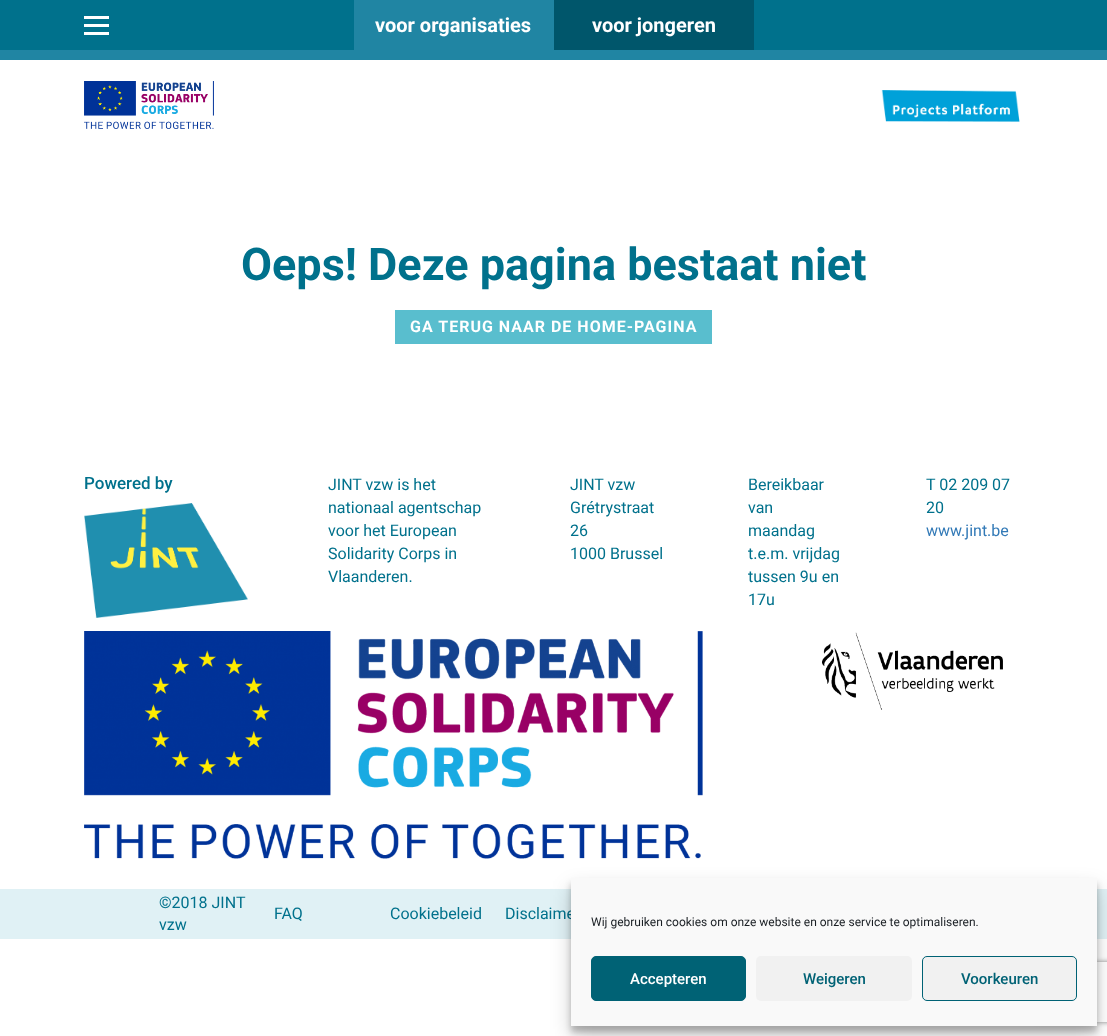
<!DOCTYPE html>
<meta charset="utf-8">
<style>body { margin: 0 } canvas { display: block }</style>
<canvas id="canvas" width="1107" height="1036"></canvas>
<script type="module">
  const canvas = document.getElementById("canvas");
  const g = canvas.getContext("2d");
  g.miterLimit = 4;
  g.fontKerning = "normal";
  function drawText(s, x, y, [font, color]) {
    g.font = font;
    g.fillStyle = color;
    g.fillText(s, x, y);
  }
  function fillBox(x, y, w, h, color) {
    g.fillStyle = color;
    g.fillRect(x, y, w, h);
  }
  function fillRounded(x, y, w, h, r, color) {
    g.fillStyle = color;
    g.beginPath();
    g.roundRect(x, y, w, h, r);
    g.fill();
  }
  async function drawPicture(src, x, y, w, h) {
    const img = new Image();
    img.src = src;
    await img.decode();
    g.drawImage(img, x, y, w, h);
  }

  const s1 = ["bold 20px Roboto", "#FFFFFF"];
  const s2 = ["bold 45px Roboto", "#00718C"];
  const s3 = ["bold 16px Roboto", "#FFFFFF"];
  const s4 = ["500 17px Roboto", "#00718C"];
  const s5 = ["16px Roboto", "#00718C"];
  const s6 = ["16px Roboto", "#337AB7"];
  const s7 = ["12px Roboto", "#191E23"];
  const s8 = ["500 15px Roboto", "#FFFFFF"];
  const s9 = ["500 15px Roboto", "#006275"];

  fillBox(0, 0, 1107, 1036, "#FFFFFF");
  fillBox(0, 0, 1107, 50, "#00718C");
  fillBox(0, 50, 1107, 10, "#2085A3");
  fillBox(84, 16, 25, 3, "#FFFFFF");
  fillBox(84, 24, 25, 3, "#FFFFFF");
  fillBox(84, 32, 25, 3, "#FFFFFF");
  fillBox(354, 0, 200, 50, "#2085A3");
  drawText("voor organisaties", 375, 32, s1);
  fillBox(554, 0, 200, 50, "#00566B");
  drawText("voor jongeren", 592, 32, s1);
  await drawPicture("pic1.png", 84, 81, 130, 48);
  await drawPicture("pic2.png", 881, 90, 139, 32);
  drawText("Oeps! Deze pagina bestaat niet", 241, 280, s2);
  fillBox(395, 310, 317, 34, "#59BECE");
  g.letterSpacing = "1px";
  drawText("GA TERUG NAAR DE HOME-PAGINA", 410, 332, s3);
  g.letterSpacing = "0px";
  drawText("Powered by", 84, 489, s4);
  await drawPicture("pic3.png", 84, 503, 164, 115);
  drawText("JINT vzw is het", 328, 490, s5);
  drawText("nationaal agentschap", 328, 513, s5);
  drawText("voor het European", 328, 536, s5);
  drawText("Solidarity Corps in", 328, 559, s5);
  drawText("Vlaanderen.", 328, 582, s5);
  drawText("JINT vzw", 570, 490, s5);
  drawText("Grétrystraat", 570, 513, s5);
  drawText("26", 570, 536, s5);
  drawText("1000 Brussel", 570, 559, s5);
  drawText("Bereikbaar", 748, 490, s5);
  drawText("van", 748, 513, s5);
  drawText("maandag", 748, 536, s5);
  drawText("t.e.m. vrijdag", 748, 559, s5);
  drawText("tussen 9u en", 748, 582, s5);
  drawText("17u", 748, 605, s5);
  drawText("T 02 209 07", 926, 490, s5);
  drawText("20", 926, 513, s5);
  drawText("www.jint.be", 926, 536, s6);
  await drawPicture("pic4.png", 84, 631, 619, 228);
  await drawPicture("pic5.png", 822, 632, 181, 78);
  fillBox(0, 889, 1107, 50, "#E0F1F5");
  drawText("©2018 JINT", 159, 908, s5);
  drawText("vzw", 159, 930, s5);
  drawText("FAQ", 274, 919, s5);
  drawText("Cookiebeleid", 390, 919, s5);
  drawText("Disclaime", 505, 919, s5);
  g.fillStyle = "rgba(0, 0, 0, 0.23)";
  g.filter = "blur(3px)";
  g.beginPath();
  g.rect(571, 884, 526, 148);
  g.fill();
  g.filter = "none";
  g.fillStyle = "rgba(0, 0, 0, 0.19)";
  g.filter = "blur(10px)";
  g.beginPath();
  g.rect(571, 888, 526, 148);
  g.fill();
  g.filter = "none";
  g.save();
  g.beginPath();
  g.moveTo(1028, 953);
  g.lineTo(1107, 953);
  g.lineTo(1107, 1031);
  g.lineTo(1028, 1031);
  g.closePath();
  g.moveTo(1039, 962);
  g.lineTo(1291, 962);
  g.bezierCurveTo(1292, 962, 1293, 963, 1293, 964);
  g.lineTo(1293, 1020);
  g.bezierCurveTo(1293, 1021, 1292, 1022, 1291, 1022);
  g.lineTo(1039, 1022);
  g.bezierCurveTo(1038, 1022, 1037, 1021, 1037, 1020);
  g.lineTo(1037, 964);
  g.bezierCurveTo(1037, 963, 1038, 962, 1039, 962);
  g.closePath();
  g.clip("evenodd");
  g.fillStyle = "#808080";
  g.filter = "blur(2.5px)";
  g.beginPath();
  g.roundRect(1037, 962, 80, 60, 2);
  g.fill();
  g.filter = "none";
  g.restore();
  fillBox(571, 878, 526, 148, "#F9F9F9");
  drawText("Wij gebruiken cookies om onze website en onze service te optimaliseren.", 591, 926, s7);
  g.fillStyle = "#006275";
  g.beginPath();
  g.roundRect(591.5, 956.5, 154, 44, 4.5);
  g.fill();
  g.strokeStyle = "#006275";
  g.stroke();
  drawText("Accepteren", 630, 984, s8);
  fillRounded(756, 956, 156, 45, 5, "#F1F1F1");
  drawText("Weigeren", 803, 984, s9);
  g.fillStyle = "#F1F1F1";
  g.beginPath();
  g.roundRect(922.5, 956.5, 154, 44, 4.5);
  g.fill();
  g.stroke();
  drawText("Voorkeuren", 961, 984, s9);
</script>
